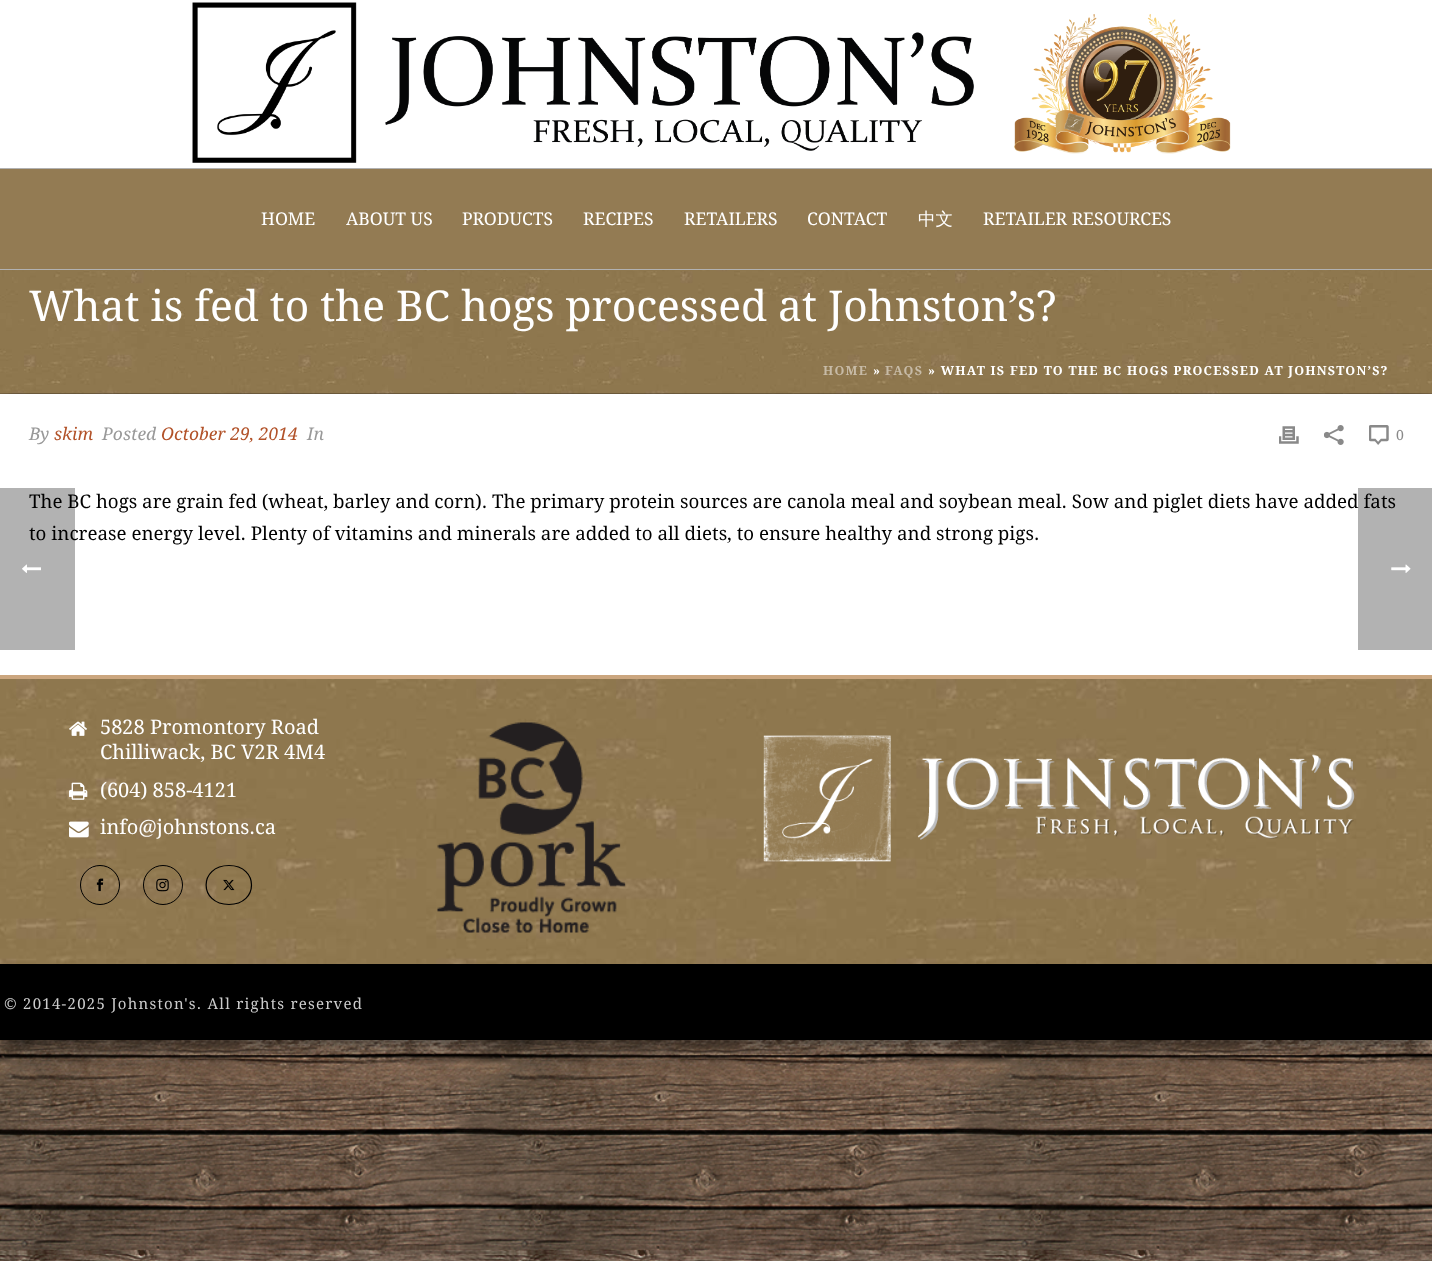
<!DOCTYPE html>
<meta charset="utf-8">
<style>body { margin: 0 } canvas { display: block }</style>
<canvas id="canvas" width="1432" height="1261"></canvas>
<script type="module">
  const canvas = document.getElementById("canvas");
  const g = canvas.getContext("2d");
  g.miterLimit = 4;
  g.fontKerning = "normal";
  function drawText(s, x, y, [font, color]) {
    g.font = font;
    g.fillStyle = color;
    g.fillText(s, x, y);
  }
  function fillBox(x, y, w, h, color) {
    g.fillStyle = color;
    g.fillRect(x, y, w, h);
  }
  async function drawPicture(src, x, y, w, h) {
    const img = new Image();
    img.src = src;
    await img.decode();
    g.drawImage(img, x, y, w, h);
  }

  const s1 = ["17.5px Droid Serif", "#FFFFFF"];
  const s2 = ["500 17.5px WenQuanYi Zen Hei", "#FFFFFF"];
  const s3 = ["42.5px Droid Serif", "#FFFFFF"];
  const s4 = ["bold 12.5px Droid Serif", "#C7BBA7"];
  const s5 = ["bold 12.5px Droid Serif", "#FFFFFF"];
  const s6 = ["italic 17.5px Droid Serif", "#999999"];
  const s7 = ["italic 17.5px Droid Serif", "#B25229"];
  const s8 = ["14px Droid Serif", "#898989"];
  const s9 = ["18.75px Droid Serif", "#000000"];
  const s10 = ["20px Droid Serif", "#FFFFFF"];
  const s11 = ["15px Droid Serif", "#CCCCCC"];

  fillBox(0, 0, 1432, 1261, "#FFFFFF");
  await drawPicture("pic1.png", 0, 393, 1432, 868);
  g.fillStyle = "#000000";
  g.filter = "blur(12.5px)";
  g.beginPath();
  g.rect(0, 0, 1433, 1040);
  g.fill();
  g.filter = "none";
  await drawPicture("pic2.png", 0, 270, 1432, 124);
  fillBox(0, 269, 1432, 1, "#B1B1B1");
  fillBox(0, 0, 1432, 168, "#FFFFFF");
  await drawPicture("pic3.png", 192, 2, 1039, 161);
  fillBox(0, 169, 1432, 100, "#937B53");
  fillBox(0, 168, 1432, 1, "#B1B1B1");
  drawText("HOME", 261, 225, s1);
  drawText("ABOUT US", 346, 225, s1);
  drawText("PRODUCTS", 462, 225, s1);
  drawText("RECIPES", 583, 225, s1);
  drawText("RETAILERS", 684, 225, s1);
  drawText("CONTACT", 807, 225, s1);
  drawText("中文", 918, 225, s2);
  drawText("RETAILER RESOURCES", 983, 225, s1);
  drawText("What is fed to the BC hogs processed at Johnston’s?", 29, 321, s3);
  g.letterSpacing = "1.25px";
  drawText("HOME", 823, 375, s4);
  drawText("»", 873, 375, s5);
  drawText("FAQS", 885, 375, s4);
  drawText("» WHAT IS FED TO THE BC HOGS PROCESSED AT JOHNSTON’S?", 928, 375, s5);
  fillBox(0, 394, 1432, 281, "#FFFFFF");
  g.letterSpacing = "0px";
  drawText("By", 29, 440, s6);
  drawText("skim", 54, 440, s7);
  drawText("Posted", 102, 440, s6);
  drawText("October 29, 2014", 161, 440, s7);
  drawText("In", 307, 440, s6);
  await drawPicture("pic4.png", 1279, 426, 20, 18);
  await drawPicture("pic5.png", 1324, 425, 20, 20);
  await drawPicture("pic6.png", 1369, 425, 20, 20);
  drawText("0", 1396, 440, s8);
  drawText("The BC hogs are grain fed (wheat, barley and corn). The primary protein sources are canola meal and soybean meal. Sow and piglet diets have added fats", 29, 508, s9);
  drawText("to increase energy level. Plenty of vitamins and minerals are added to all diets, to ensure healthy and strong pigs.", 29, 540, s9);
  await drawPicture("pic7.png", 0, 679, 1432, 285);
  fillBox(0, 675, 1432, 4, "#CBA67F");
  await drawPicture("pic8.png", 69, 721, 18, 15);
  drawText("5828 Promontory Road", 100, 734, s10);
  drawText("Chilliwack, BC V2R 4M4", 100, 759, s10);
  await drawPicture("pic9.png", 69, 782, 19, 18);
  drawText("(604) 858-4121", 100, 797, s10);
  await drawPicture("pic10.png", 69, 821, 20, 17);
  drawText("info@johnstons.ca", 100, 834, s10);
  g.beginPath();
  g.arc(100, 885, 19.5, 0, Math.PI * 2);
  g.strokeStyle = "#000000";
  g.stroke();
  await drawPicture("pic11.png", 96, 878, 8, 14);
  g.beginPath();
  g.arc(163, 885, 19.5, 0, Math.PI * 2);
  g.stroke();
  await drawPicture("pic12.png", 156, 878, 13, 14);
  g.beginPath();
  g.moveTo(229, 865.5);
  g.bezierCurveTo(259, 865.5, 259, 904.5, 229, 904.5);
  g.bezierCurveTo(198.5, 904.5, 198.5, 865.5, 229, 865.5);
  g.closePath();
  g.lineWidth = 1.2;
  g.stroke();
  await drawPicture("pic13.png", 223, 879, 12, 12);
  await drawPicture("pic14.png", 437, 722, 189, 211);
  await drawPicture("pic15.png", 763, 735, 592, 127);
  fillBox(0, 964, 1432, 76, "#000000");
  g.letterSpacing = "1.25px";
  drawText("© 2014-2025 Johnston's. All rights reserved", 4, 1009, s11);
  fillBox(0, 488, 75, 162, "rgba(0, 0, 0, 0.3)");
  await drawPicture("pic16.png", 22, 564, 19, 9);
  fillBox(1358, 488, 74, 162, "rgba(0, 0, 0, 0.3)");
  await drawPicture("pic17.png", 1391, 564, 20, 9);
</script>
